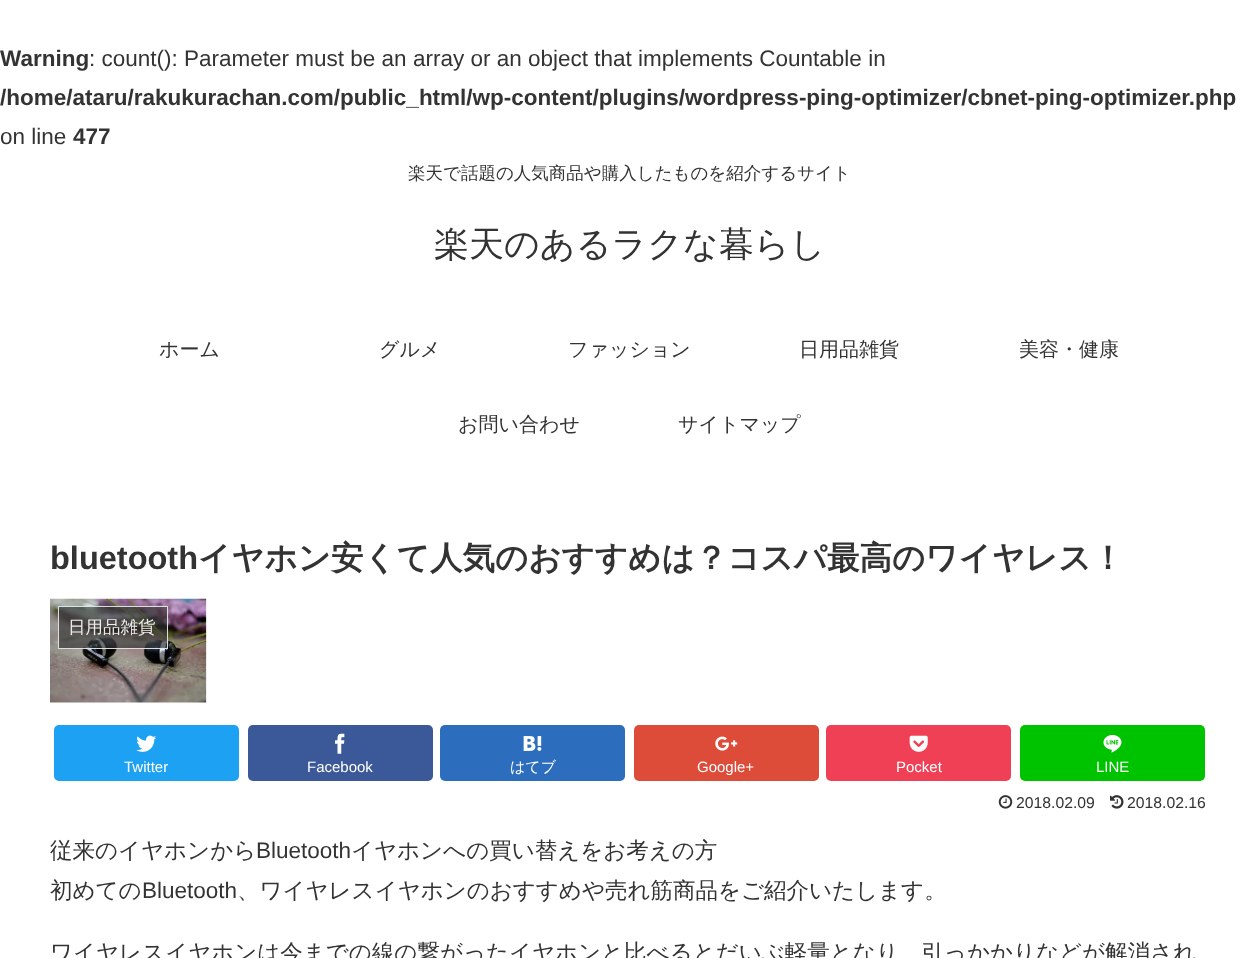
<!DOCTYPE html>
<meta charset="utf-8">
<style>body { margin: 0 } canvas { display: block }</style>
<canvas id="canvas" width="1258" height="958"></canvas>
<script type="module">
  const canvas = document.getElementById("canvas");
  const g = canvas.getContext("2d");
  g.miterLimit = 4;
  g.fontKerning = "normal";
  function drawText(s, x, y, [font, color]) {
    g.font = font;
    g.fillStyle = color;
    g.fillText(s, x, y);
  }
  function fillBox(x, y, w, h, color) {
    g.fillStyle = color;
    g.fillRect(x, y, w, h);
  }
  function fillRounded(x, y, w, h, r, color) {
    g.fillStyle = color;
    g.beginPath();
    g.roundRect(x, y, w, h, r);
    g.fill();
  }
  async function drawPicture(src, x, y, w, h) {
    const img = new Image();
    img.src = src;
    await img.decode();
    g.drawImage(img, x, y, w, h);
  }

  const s1 = ["bold 22.5px Liberation Sans", "#333333"];
  const s2 = ["22.5px Liberation Sans", "#333333"];
  const s3 = ["500 17.5px WenQuanYi Zen Hei", "#333333"];
  const s4 = ["500 35px WenQuanYi Zen Hei", "#333333"];
  const s5 = ["500 20px WenQuanYi Zen Hei", "#333333"];
  const s6 = ["bold 32.5px Liberation Sans", "#333333"];
  const s7 = ["bold 32.5px WenQuanYi Zen Hei", "#333333"];
  const s8 = ["500 17.5px WenQuanYi Zen Hei", "#ECECEC"];
  const s9 = ["15px Liberation Sans", "#FFFFFF"];
  const s10 = ["500 15px WenQuanYi Zen Hei", "#FFFFFF"];
  const s11 = ["15.75px Liberation Sans", "#333333"];
  const s12 = ["500 22.5px WenQuanYi Zen Hei", "#333333"];

  fillBox(0, 0, 1258, 958, "#FFFFFF");
  drawText("Warning", 0, 66, s1);
  drawText(": count(): Parameter must be an array or an object that implements Countable in", 89, 66, s2);
  drawText("/home/ataru/rakukurachan.com/public_html/wp-content/plugins/wordpress-ping-optimizer/cbnet-ping-optimizer.php", 0, 105, s1);
  drawText("on line", 0, 144, s2);
  drawText("477", 73, 144, s1);
  drawText("楽天で話題の人気商品や購入したものを紹介するサイト", 408, 179, s3);
  drawText("楽天のあるラクな暮らし", 434, 256, s4);
  drawText("ホーム", 159, 356, s5);
  drawText("グルメ", 379, 356, s5);
  drawText("ファッション", 568, 356, s5);
  drawText("日用品雑貨", 799, 356, s5);
  drawText("美容・健康", 1019, 356, s5);
  drawText("お問い合わせ", 458, 431, s5);
  drawText("サイトマップ", 678, 431, s5);
  drawText("bluetooth", 50, 569, s6);
  drawText("イヤホン安くて人気のおすすめは？コスパ最高のワイヤレス！", 198, 569, s7);
  await drawPicture("pic1.png", 50, 598, 157, 105);
  fillBox(58, 606, 110, 43, "rgba(51, 51, 51, 0.63)");
  g.strokeStyle = "rgba(238, 238, 238, 0.9)";
  g.strokeRect(58.5, 606.5, 109, 42);
  drawText("日用品雑貨", 68, 633, s8);
  fillRounded(54, 725, 185, 56, 5, "#1DA1F2");
  await drawPicture("pic2.png", 136, 735, 21, 17);
  drawText("Twitter", 124, 772, s9);
  fillRounded(248, 725, 185, 56, 5, "#3B5998");
  await drawPicture("pic3.png", 335, 733, 10, 21);
  drawText("Facebook", 307, 772, s9);
  fillRounded(440, 725, 185, 56, 5, "#2C6EBD");
  await drawPicture("pic4.png", 523, 736, 19, 15);
  drawText("はてブ", 510, 772, s10);
  fillRounded(634, 725, 185, 56, 5, "#DD4B39");
  await drawPicture("pic5.png", 715, 736, 23, 15);
  drawText("Google+", 697, 772, s9);
  fillRounded(826, 725, 185, 56, 5, "#EF4056");
  await drawPicture("pic6.png", 909, 735, 19, 17);
  drawText("Pocket", 896, 772, s9);
  fillRounded(1020, 725, 185, 56, 5, "#00C300");
  await drawPicture("pic7.png", 1103, 735, 19, 18);
  drawText("LINE", 1096, 772, s9);
  await drawPicture("pic8.png", 998, 795, 15, 14);
  drawText("2018.02.09", 1016, 808, s11);
  await drawPicture("pic9.png", 1110, 795, 14, 14);
  drawText("2018.02.16", 1127, 808, s11);
  drawText("従来のイヤホンから", 50, 858, s12);
  drawText("Bluetooth", 256, 858, s2);
  drawText("イヤホンへの買い替えをお考えの方", 351, 858, s12);
  drawText("初めての", 50, 898, s12);
  drawText("Bluetooth", 142, 898, s2);
  drawText("、ワイヤレスイヤホンのおすすめや売れ筋商品をご紹介いたします。", 237, 898, s12);
  drawText("ワイヤレスイヤホンは今までの線の繋がったイヤホンと比べるとだいぶ軽量となり、引っかかりなどが解消され", 50, 960, s12);
</script>
